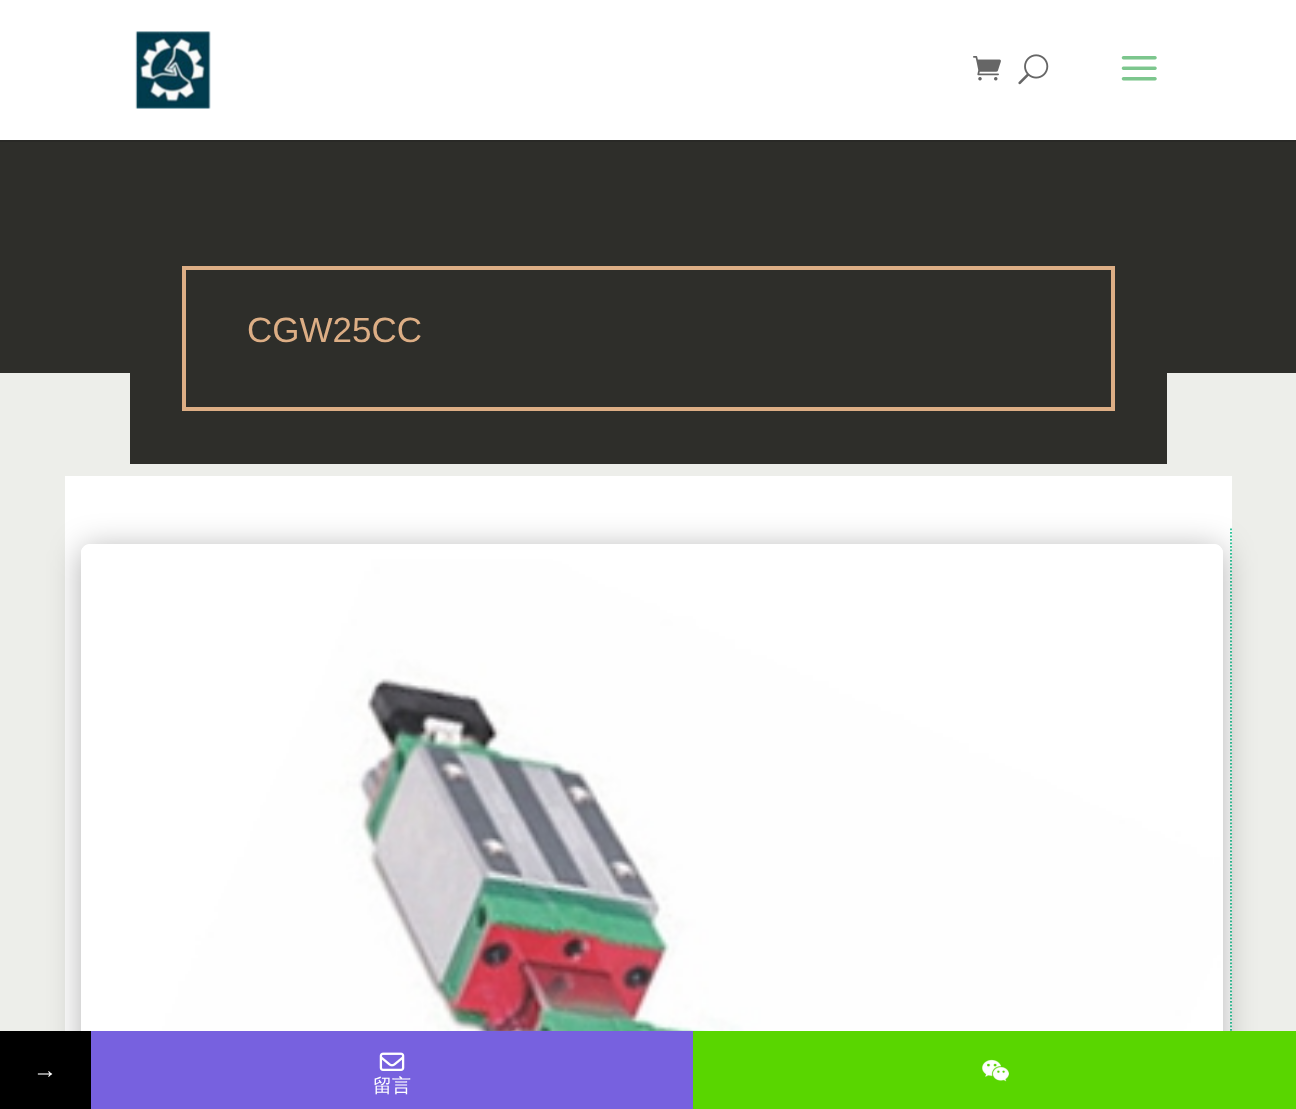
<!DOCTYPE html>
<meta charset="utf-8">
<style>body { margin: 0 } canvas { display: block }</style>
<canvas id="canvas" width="1296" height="1109"></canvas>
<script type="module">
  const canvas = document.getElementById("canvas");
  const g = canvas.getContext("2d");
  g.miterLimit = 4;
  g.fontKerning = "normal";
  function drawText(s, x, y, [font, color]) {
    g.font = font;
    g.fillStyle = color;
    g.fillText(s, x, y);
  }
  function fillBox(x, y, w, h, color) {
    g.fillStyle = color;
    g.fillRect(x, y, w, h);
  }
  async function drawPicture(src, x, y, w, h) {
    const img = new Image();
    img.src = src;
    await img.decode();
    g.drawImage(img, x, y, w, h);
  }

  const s1 = ["35px Liberation Sans", "#DDAE85"];
  const s2 = ["24px Liberation Sans", "#FFFFFF"];
  const s3 = ["500 19px WenQuanYi Zen Hei", "#FFFFFF"];

  fillBox(0, 0, 1296, 1109, "#2E2E2A");
  g.fillStyle = "#292926";
  g.beginPath();
  g.moveTo(0, 140);
  g.lineTo(0, 142);
  g.lineTo(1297, 142);
  g.lineTo(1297, 2);
  g.lineTo(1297, 140);
  g.closePath();
  g.fill();
  fillBox(0, 0, 1296, 140, "#FFFFFF");
  await drawPicture("pic1.png", 135, 31, 76, 78);
  await drawPicture("pic2.png", 973, 56, 28, 25);
  await drawPicture("pic3.png", 1018, 54, 31, 31);
  await drawPicture("pic4.png", 1121, 56, 36, 25);
  fillBox(0, 373, 1296, 658, "#EDEEEA");
  fillBox(130, 373, 1037, 91, "#2E2E2A");
  g.strokeStyle = "#DDAE85";
  g.lineWidth = 4;
  g.strokeRect(184, 268, 929, 141);
  drawText("CGW25CC", 247, 342, s1);
  fillBox(65, 476, 1167, 555, "#FFFFFF");
  g.beginPath();
  g.moveTo(1231, 528.5);
  g.lineTo(1231, 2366);
  g.strokeStyle = "#21C493";
  g.lineWidth = 1.8;
  g.setLineDash([1.75, 1.75]);
  g.stroke();
  g.save();
  g.beginPath();
  g.moveTo(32, 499);
  g.lineTo(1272, 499);
  g.lineTo(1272, 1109);
  g.lineTo(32, 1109);
  g.closePath();
  g.moveTo(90, 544);
  g.lineTo(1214, 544);
  g.bezierCurveTo(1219, 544, 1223, 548, 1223, 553);
  g.lineTo(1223, 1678);
  g.bezierCurveTo(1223, 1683, 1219, 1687, 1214, 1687);
  g.lineTo(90, 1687);
  g.bezierCurveTo(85, 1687, 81, 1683, 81, 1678);
  g.lineTo(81, 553);
  g.bezierCurveTo(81, 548, 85, 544, 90, 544);
  g.closePath();
  g.clip("evenodd");
  g.fillStyle = "rgba(0, 0, 0, 0.3)";
  g.filter = "blur(16px)";
  g.beginPath();
  g.roundRect(81, 548, 1142, 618, 9);
  g.fill();
  g.filter = "none";
  g.restore();
  g.beginPath();
  g.roundRect(82, 545, 1140, 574, 8);
  g.strokeStyle = "#FFFFFF";
  g.lineWidth = 2;
  g.setLineDash([]);
  g.stroke();
  g.save();
  g.beginPath();
  g.roundRect(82, 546, 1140, 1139, 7);
  g.clip();
  g.beginPath();
  g.moveTo(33, 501);
  g.lineTo(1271, 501);
  g.lineTo(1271, 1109);
  g.lineTo(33, 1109);
  g.closePath();
  g.moveTo(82, 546);
  g.lineTo(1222, 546);
  g.lineTo(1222, 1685);
  g.lineTo(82, 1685);
  g.closePath();
  g.clip("evenodd");
  g.fillStyle = "rgba(0, 0, 0, 0.3)";
  g.filter = "blur(16px)";
  g.beginPath();
  g.rect(82, 550, 1140, 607);
  g.fill();
  g.filter = "none";
  g.restore();
  await drawPicture("pic5.png", 82, 559, 1140, 472);
  fillBox(0, 1031, 91, 78, "#000000");
  drawText("→", 33, 1078, s2);
  fillBox(693, 1031, 603, 78, "#59D600");
  await drawPicture("pic6.png", 982, 1059, 27, 23);
  fillBox(91, 1031, 602, 78, "#7761DF");
  await drawPicture("pic7.png", 379, 1052, 26, 19);
  drawText("留言", 373, 1092, s3);
</script>
